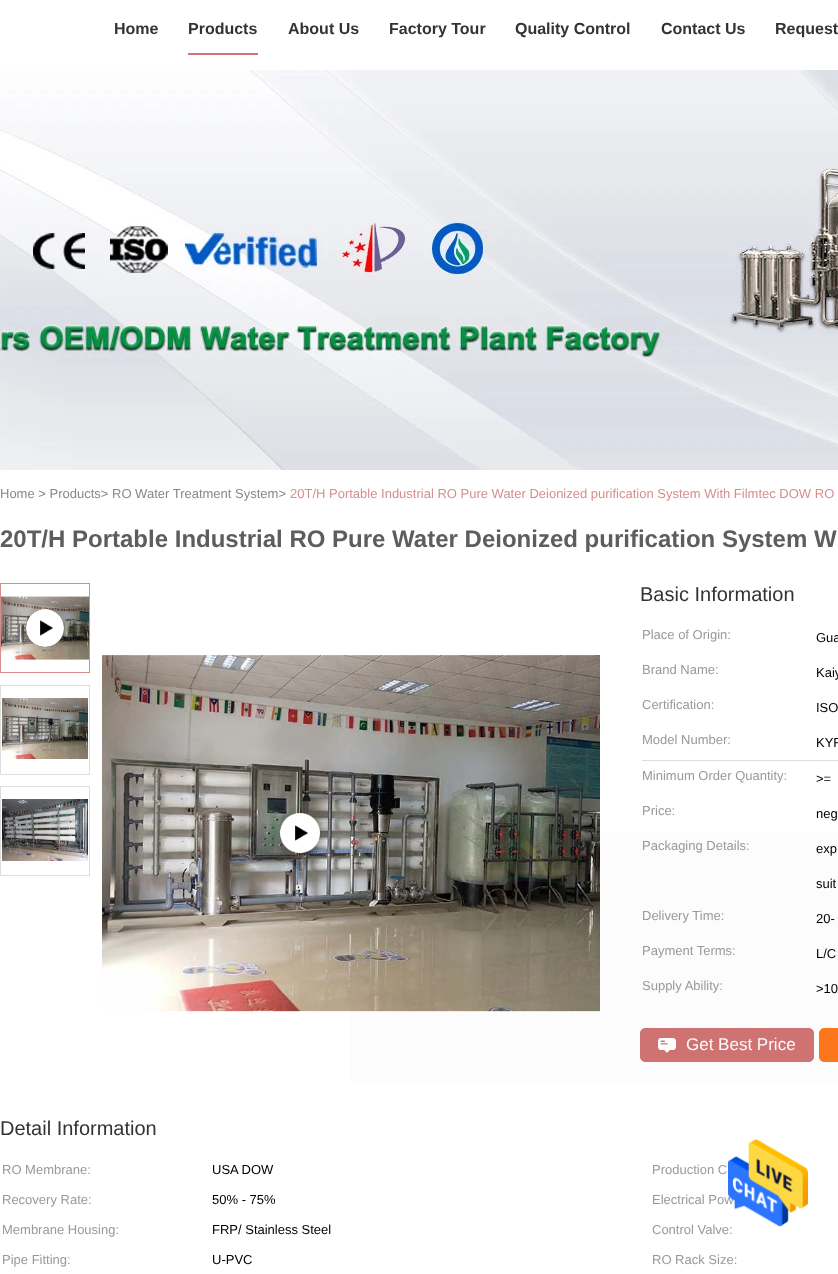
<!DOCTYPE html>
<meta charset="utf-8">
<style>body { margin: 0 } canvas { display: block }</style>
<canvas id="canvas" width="838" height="1274"></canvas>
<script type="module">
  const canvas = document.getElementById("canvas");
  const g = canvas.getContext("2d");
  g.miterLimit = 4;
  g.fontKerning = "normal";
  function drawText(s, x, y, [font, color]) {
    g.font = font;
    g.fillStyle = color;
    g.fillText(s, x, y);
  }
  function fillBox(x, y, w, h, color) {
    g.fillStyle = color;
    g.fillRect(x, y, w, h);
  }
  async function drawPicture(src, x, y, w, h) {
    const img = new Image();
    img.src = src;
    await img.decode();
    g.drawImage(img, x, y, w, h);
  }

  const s1 = ["bold 16px Liberation Sans", "#333333"];
  const s2 = ["13px Liberation Sans", "#888888"];
  const s3 = ["13px Liberation Sans", "#D88D8D"];
  const s4 = ["bold 24px Liberation Sans", "#5D5D5D"];
  const s5 = ["20px Liberation Sans", "#333333"];
  const s6 = ["13px Liberation Sans", "#999999"];
  const s7 = ["13px Liberation Sans", "#000000"];
  const s8 = ["17px Liberation Sans", "#FCFCFC"];

  fillBox(0, 0, 838, 1274, "#FFFFFF");
  fillBox(351, 833, 487, 250, "#FCFCFC");
  drawText("Home", 114, 34, s1);
  fillBox(188, 53, 70, 2, "#D17474");
  drawText("Products", 188, 34, s1);
  drawText("About Us", 288, 34, s1);
  drawText("Factory Tour", 389, 34, s1);
  drawText("Quality Control", 515, 34, s1);
  drawText("Contact Us", 661, 34, s1);
  drawText("Request", 775, 34, s1);
  await drawPicture("pic1.png", 0, 70, 838, 400);
  drawText("Home > Products> RO Water Treatment System>", 0, 498, s2);
  drawText("20T/H Portable Industrial RO Pure Water Deionized purification System With Filmtec DOW RO", 290, 498, s3);
  drawText("20T/H Portable Industrial RO Pure Water Deionized purification System W", 0, 547, s4);
  g.strokeStyle = "#D88D8D";
  g.strokeRect(0.5, 583.5, 89, 89);
  await drawPicture("pic2.png", 1, 596, 88, 64);
  g.fillStyle = "#000000";
  g.beginPath();
  g.arc(45, 628, 19, 0, Math.PI * 2);
  g.fill();
  await drawPicture("pic3.png", 26, 609, 38, 38);
  g.strokeStyle = "#DDDDDD";
  g.strokeRect(0.5, 685.5, 89, 89);
  await drawPicture("pic4.png", 2, 698, 86, 61);
  g.strokeRect(0.5, 786.5, 89, 89);
  await drawPicture("pic5.png", 2, 799, 86, 62);
  await drawPicture("pic6.png", 102, 655, 498, 357);
  g.fillStyle = "rgba(0, 0, 0, 0.2)";
  g.filter = "blur(2.5px)";
  g.beginPath();
  g.roundRect(281, 814, 38, 38, 19);
  g.fill();
  g.filter = "none";
  g.fillStyle = "#000000";
  g.beginPath();
  g.arc(300, 833, 19, 0, Math.PI * 2);
  g.fill();
  await drawPicture("pic7.png", 280, 813, 40, 40);
  drawText("Basic Information", 640, 601, s5);
  drawText("Place of Origin:", 642, 639, s6);
  drawText("Gua", 816, 642, s7);
  drawText("Brand Name:", 642, 674, s6);
  drawText("Kaiy", 816, 677, s7);
  drawText("Certification:", 642, 709, s6);
  drawText("ISO", 816, 712, s7);
  drawText("Model Number:", 642, 744, s6);
  drawText("KYR", 816, 747, s7);
  fillBox(642, 760, 196, 1, "#DDDDDD");
  drawText("Minimum Order Quantity:", 642, 780, s6);
  drawText(">=", 816, 783, s7);
  drawText("Price:", 642, 815, s6);
  drawText("neg", 816, 818, s7);
  drawText("Packaging Details:", 642, 850, s6);
  drawText("exp", 816, 853, s7);
  drawText("suit", 816, 888, s7);
  drawText("Delivery Time:", 642, 920, s6);
  drawText("20-", 816, 923, s7);
  drawText("Payment Terms:", 642, 955, s6);
  drawText("L/C", 816, 958, s7);
  drawText("Supply Ability:", 642, 990, s6);
  drawText(">10", 816, 993, s7);
  g.fillStyle = "#CE7372";
  g.beginPath();
  g.roundRect(640.5, 1028.5, 173, 33, 4.5);
  g.fill();
  g.strokeStyle = "#CE7372";
  g.stroke();
  await drawPicture("pic8.png", 658, 1038, 18, 15);
  drawText("Get Best Price", 686, 1050, s8);
  g.fillStyle = "#FC761C";
  g.beginPath();
  g.roundRect(819.5, 1028.5, 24, 33, 4.5);
  g.fill();
  g.strokeStyle = "#FC761C";
  g.stroke();
  drawText("Detail Information", 0, 1135, s5);
  drawText("RO Membrane:", 2, 1174, s6);
  drawText("USA DOW", 212, 1174, s7);
  drawText("Production C", 652, 1174, s6);
  drawText("Recovery Rate:", 2, 1204, s6);
  drawText("50% - 75%", 212, 1204, s7);
  drawText("Electrical Pow", 652, 1204, s6);
  drawText("Membrane Housing:", 2, 1234, s6);
  drawText("FRP/ Stainless Steel", 212, 1234, s7);
  drawText("Control Valve:", 652, 1234, s6);
  drawText("Pipe Fitting:", 2, 1264, s6);
  drawText("U-PVC", 212, 1264, s7);
  drawText("RO Rack Size:", 652, 1264, s6);
  await drawPicture("pic9.png", 728, 1139, 80, 88);
</script>
